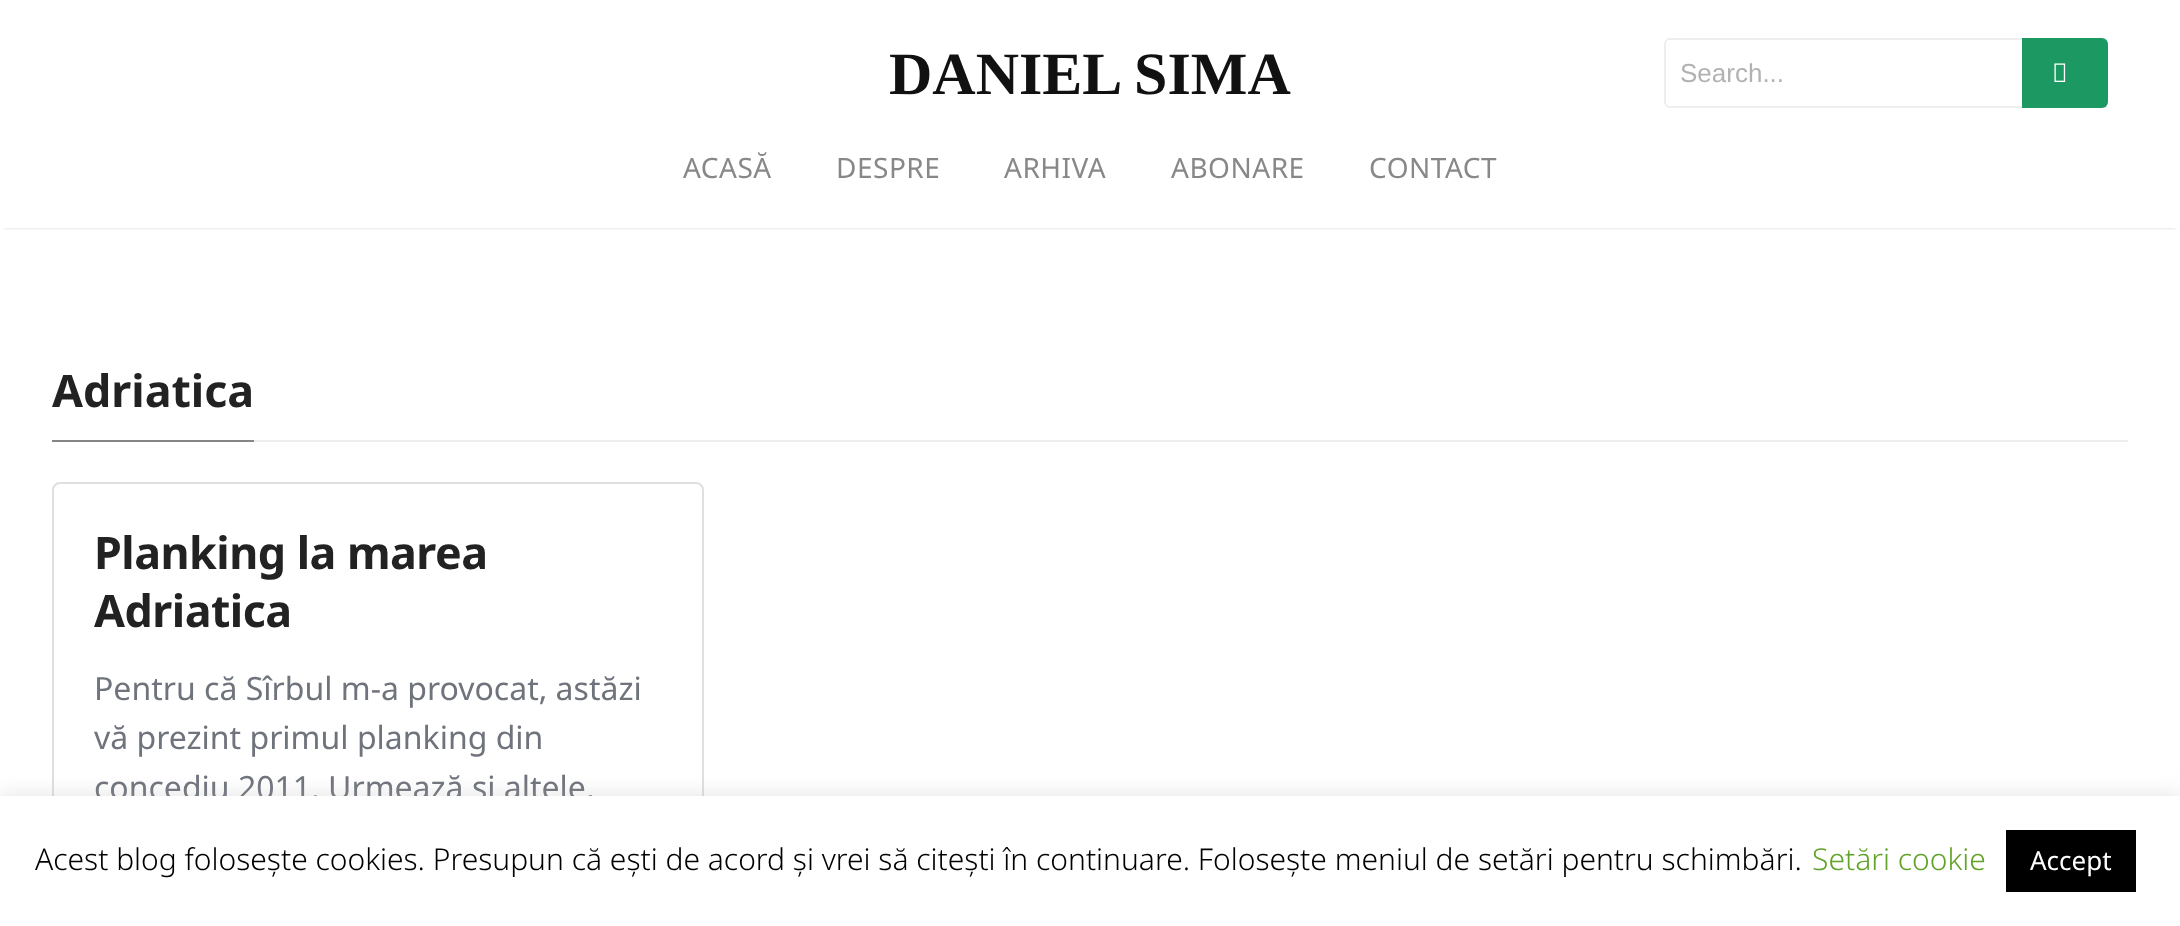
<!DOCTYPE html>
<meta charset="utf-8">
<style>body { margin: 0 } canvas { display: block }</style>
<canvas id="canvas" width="2180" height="926"></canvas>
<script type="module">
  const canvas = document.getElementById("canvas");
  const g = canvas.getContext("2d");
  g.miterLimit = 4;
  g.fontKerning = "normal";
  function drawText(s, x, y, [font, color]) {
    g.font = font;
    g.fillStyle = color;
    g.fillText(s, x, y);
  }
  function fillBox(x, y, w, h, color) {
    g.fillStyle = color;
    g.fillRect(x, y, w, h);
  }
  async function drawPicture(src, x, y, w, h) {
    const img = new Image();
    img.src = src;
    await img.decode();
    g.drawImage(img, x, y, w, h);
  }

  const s1 = ["bold 60px Liberation Serif", "#111111"];
  const s2 = ["26px Liberation Sans", "#B2B2B2"];
  const s3 = ["28px Noto Sans", "#888888"];
  const s4 = ["bold 44.75px Noto Sans", "#222222"];
  const s5 = ["32px Noto Sans", "#6F737C"];
  const s6 = ["300 30px Noto Sans", "#000000"];
  const s7 = ["300 30px Noto Sans", "#62A329"];
  const s8 = ["26px Noto Sans", "#FFFFFF"];

  fillBox(0, 0, 2180, 926, "#FFFFFF");
  g.save();
  g.beginPath();
  g.rect(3, 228, 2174, 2);
  g.clip();
  g.fillStyle = "rgba(0, 0, 0, 0.15)";
  g.filter = "blur(2px)";
  g.beginPath();
  g.rect(4, 8, 2172, 220);
  g.fill();
  g.filter = "none";
  g.restore();
  drawText("DANIEL SIMA", 889, 94, s1);
  g.beginPath();
  g.roundRect(1665, 39, 358, 68, [5, 0, 0, 5]);
  g.strokeStyle = "#EEEEEE";
  g.lineWidth = 2;
  g.stroke();
  drawText("Search...", 1680, 82, s2);
  g.fillStyle = "#1C9963";
  g.beginPath();
  g.roundRect(2022, 38, 86, 70, [0, 6, 6, 0]);
  g.fill();
  await drawPicture("pic1.png", 2054, 63, 12, 19);
  g.letterSpacing = "0.5px";
  drawText("ACASĂ", 683, 178, s3);
  drawText("DESPRE", 836, 178, s3);
  drawText("ARHIVA", 1004, 178, s3);
  drawText("ABONARE", 1171, 178, s3);
  drawText("CONTACT", 1369, 178, s3);
  fillBox(254, 440, 1874, 2, "#EEEEEE");
  fillBox(52, 440, 202, 2, "#858585");
  g.letterSpacing = "0px";
  drawText("Adriatica", 52, 407, s4);
  g.beginPath();
  g.roundRect(53, 483, 650, 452, 7);
  g.strokeStyle = "#DFDFDF";
  g.stroke();
  g.letterSpacing = "-0.5px";
  drawText("Planking la marea", 94, 569, s4);
  drawText("Adriatica", 94, 627, s4);
  g.letterSpacing = "0px";
  drawText("Pentru că Sîrbul m-a provocat, astăzi", 94, 700, s5);
  drawText("vă prezint primul planking din", 94, 749, s5);
  drawText("concediu 2011. Urmează și altele,", 94, 799, s5);
  g.fillStyle = "rgba(172, 171, 171, 0.3)";
  g.filter = "blur(10px)";
  g.beginPath();
  g.rect(0, 794, 2180, 130);
  g.fill();
  g.filter = "none";
  fillBox(0, 796, 2180, 130, "#FFFFFF");
  drawText("Acest blog folosește cookies. Presupun că ești de acord și vrei să citești în continuare. Folosește meniul de setări pentru schimbări.", 35, 870, s6);
  drawText("Setări cookie", 1812, 870, s7);
  fillBox(2006, 830, 130, 62, "#000000");
  drawText("Accept", 2030, 870, s8);
</script>
